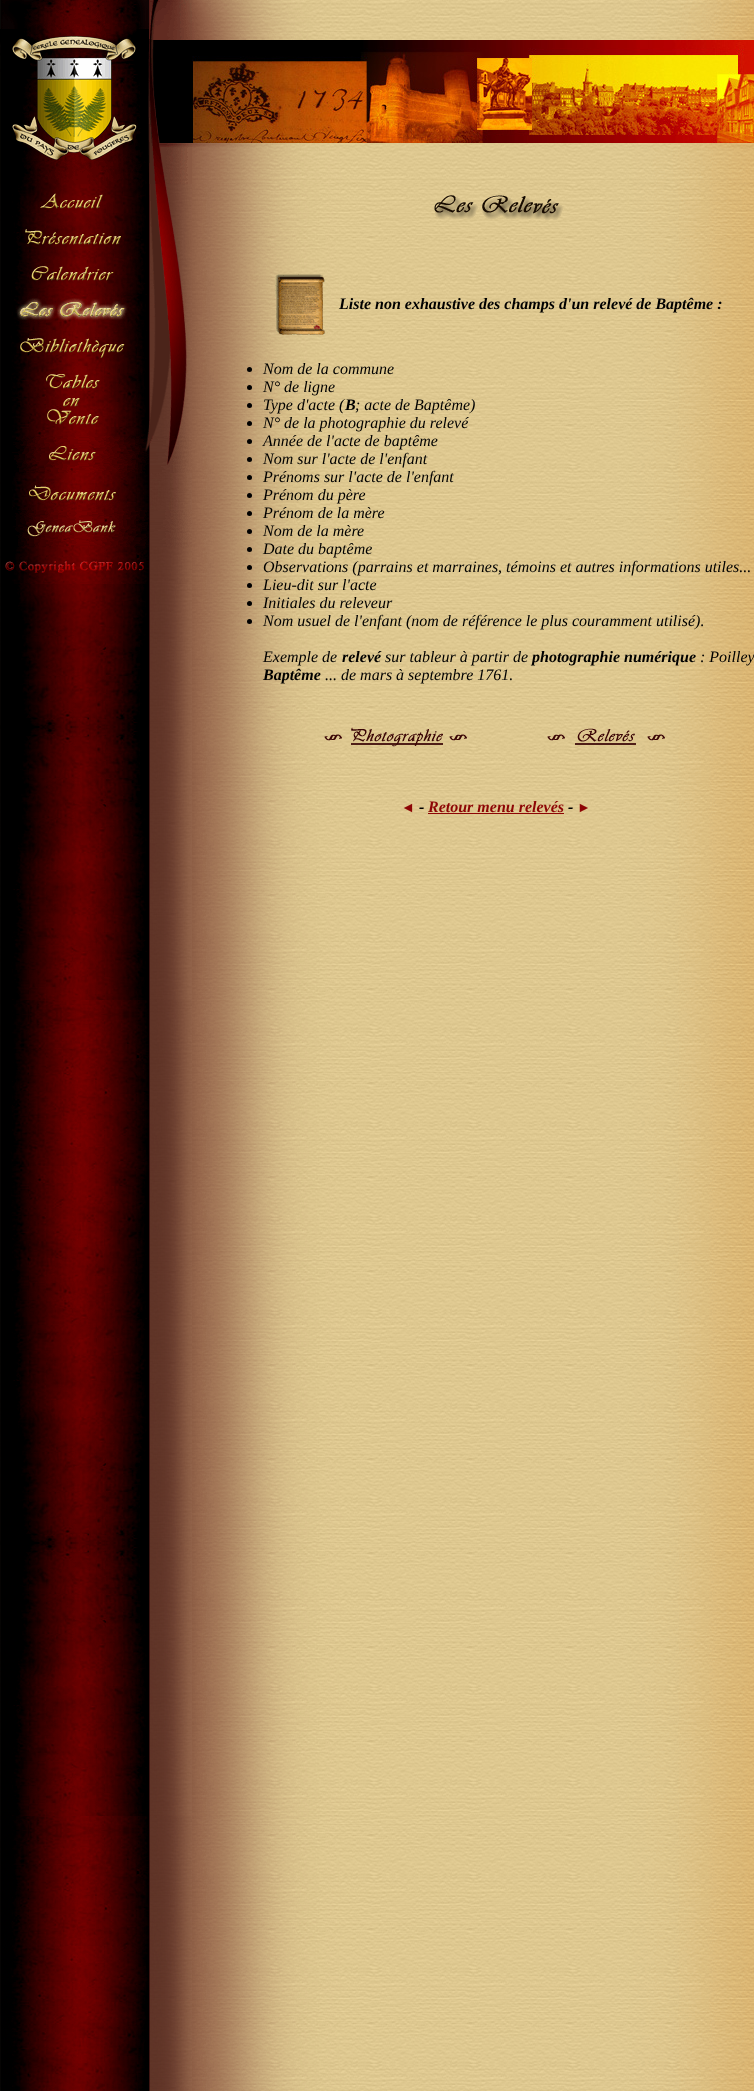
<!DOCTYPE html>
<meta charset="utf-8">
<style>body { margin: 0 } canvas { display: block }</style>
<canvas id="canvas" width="754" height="2091"></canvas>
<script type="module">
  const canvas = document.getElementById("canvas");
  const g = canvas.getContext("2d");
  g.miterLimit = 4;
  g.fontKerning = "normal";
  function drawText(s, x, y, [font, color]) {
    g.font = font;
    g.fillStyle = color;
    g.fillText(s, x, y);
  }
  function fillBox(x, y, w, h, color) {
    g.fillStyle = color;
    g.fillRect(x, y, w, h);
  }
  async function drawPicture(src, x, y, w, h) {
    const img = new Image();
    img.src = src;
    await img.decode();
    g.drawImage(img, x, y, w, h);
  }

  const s1 = ["italic bold 16px Liberation Serif", "#000000"];
  const s2 = ["italic 16px Liberation Serif", "#000000"];
  const s3 = ["italic bold 14px Liberation Serif", "#8D0505"];
  const s4 = ["italic bold 16px Liberation Serif", "#8D0505"];

  fillBox(0, 0, 754, 2091, "#FFFFFF");
  await drawPicture("pic1.png", 0, 0, 192, 184);
  await drawPicture("pic2.png", 192, 0, 562, 40);
  await drawPicture("pic3.png", 192, 40, 562, 103);
  await drawPicture("pic4.png", 192, 143, 562, 41);
  await drawPicture("pic5.png", 0, 184, 192, 1907);
  await drawPicture("pic6.png", 13, 184, 179, 36);
  await drawPicture("pic7.png", 15, 220, 177, 37);
  await drawPicture("pic8.png", 12, 257, 180, 37);
  await drawPicture("pic9.png", 12, 294, 180, 37);
  await drawPicture("pic10.png", 12, 331, 180, 37);
  await drawPicture("pic11.png", 12, 368, 180, 68);
  await drawPicture("pic12.png", 12, 436, 180, 37);
  await drawPicture("pic13.png", 12, 473, 180, 37);
  await drawPicture("pic14.png", 13, 510, 179, 37);
  await drawPicture("pic15.png", 5, 547, 187, 37);
  await drawPicture("pic16.png", 192, 184, 562, 1907);
  await drawPicture("pic17.png", 434, 195, 129, 25);
  await drawPicture("pic18.png", 275, 274, 50, 61);
  drawText("Liste non exhaustive des champs d'un relevé de Baptême :", 339, 309, s1);
  g.beginPath();
  g.arc(249.5, 369.5, 2.5, 0, Math.PI * 2);
  g.fill();
  drawText("Nom de la commune", 263, 374, s2);
  g.beginPath();
  g.arc(249.5, 387.5, 2.5, 0, Math.PI * 2);
  g.fill();
  drawText("N° de ligne", 263, 392, s2);
  g.beginPath();
  g.arc(249.5, 405.5, 2.5, 0, Math.PI * 2);
  g.fill();
  drawText("Type d'acte (", 263, 410, s2);
  drawText("B", 345, 410, s1);
  drawText("; acte de Baptême)", 355, 410, s2);
  g.beginPath();
  g.arc(249.5, 423.5, 2.5, 0, Math.PI * 2);
  g.fill();
  drawText("N° de la photographie du relevé", 263, 428, s2);
  g.beginPath();
  g.arc(249.5, 441.5, 2.5, 0, Math.PI * 2);
  g.fill();
  drawText("Année de l'acte de baptême", 263, 446, s2);
  g.beginPath();
  g.arc(249.5, 459.5, 2.5, 0, Math.PI * 2);
  g.fill();
  drawText("Nom sur l'acte de l'enfant", 263, 464, s2);
  g.beginPath();
  g.arc(249.5, 477.5, 2.5, 0, Math.PI * 2);
  g.fill();
  drawText("Prénoms sur l'acte de l'enfant", 263, 482, s2);
  g.beginPath();
  g.arc(249.5, 495.5, 2.5, 0, Math.PI * 2);
  g.fill();
  drawText("Prénom du père", 263, 500, s2);
  g.beginPath();
  g.arc(249.5, 513.5, 2.5, 0, Math.PI * 2);
  g.fill();
  drawText("Prénom de la mère", 263, 518, s2);
  g.beginPath();
  g.arc(249.5, 531.5, 2.5, 0, Math.PI * 2);
  g.fill();
  drawText("Nom de la mère", 263, 536, s2);
  g.beginPath();
  g.arc(249.5, 549.5, 2.5, 0, Math.PI * 2);
  g.fill();
  drawText("Date du baptême", 263, 554, s2);
  g.beginPath();
  g.arc(249.5, 567.5, 2.5, 0, Math.PI * 2);
  g.fill();
  drawText("Observations (parrains et marraines, témoins et autres informations utiles...", 263, 572, s2);
  g.beginPath();
  g.arc(249.5, 585.5, 2.5, 0, Math.PI * 2);
  g.fill();
  drawText("Lieu-dit sur l'acte", 263, 590, s2);
  g.beginPath();
  g.arc(249.5, 603.5, 2.5, 0, Math.PI * 2);
  g.fill();
  drawText("Initiales du releveur", 263, 608, s2);
  g.beginPath();
  g.arc(249.5, 621.5, 2.5, 0, Math.PI * 2);
  g.fill();
  drawText("Nom usuel de l'enfant (nom de référence le plus couramment utilisé).", 263, 626, s2);
  drawText("Exemple de", 263, 662, s2);
  drawText("relevé", 342, 662, s1);
  drawText("sur tableur à partir de", 385, 662, s2);
  drawText("photographie numérique", 532, 662, s1);
  drawText(": Poilley", 700, 662, s2);
  drawText("Baptême", 263, 680, s1);
  drawText("... de mars à septembre 1761.", 325, 680, s2);
  await drawPicture("pic19.png", 324, 727, 341, 20);
  drawText("◄", 401, 812, s3);
  drawText("-", 419, 812, s1);
  drawText("Retour menu relevés", 428, 812, s4);
  fillBox(428, 813, 136, 1, "#8D0505");
  drawText("-", 568, 812, s1);
  drawText("►", 577, 812, s3);
</script>
